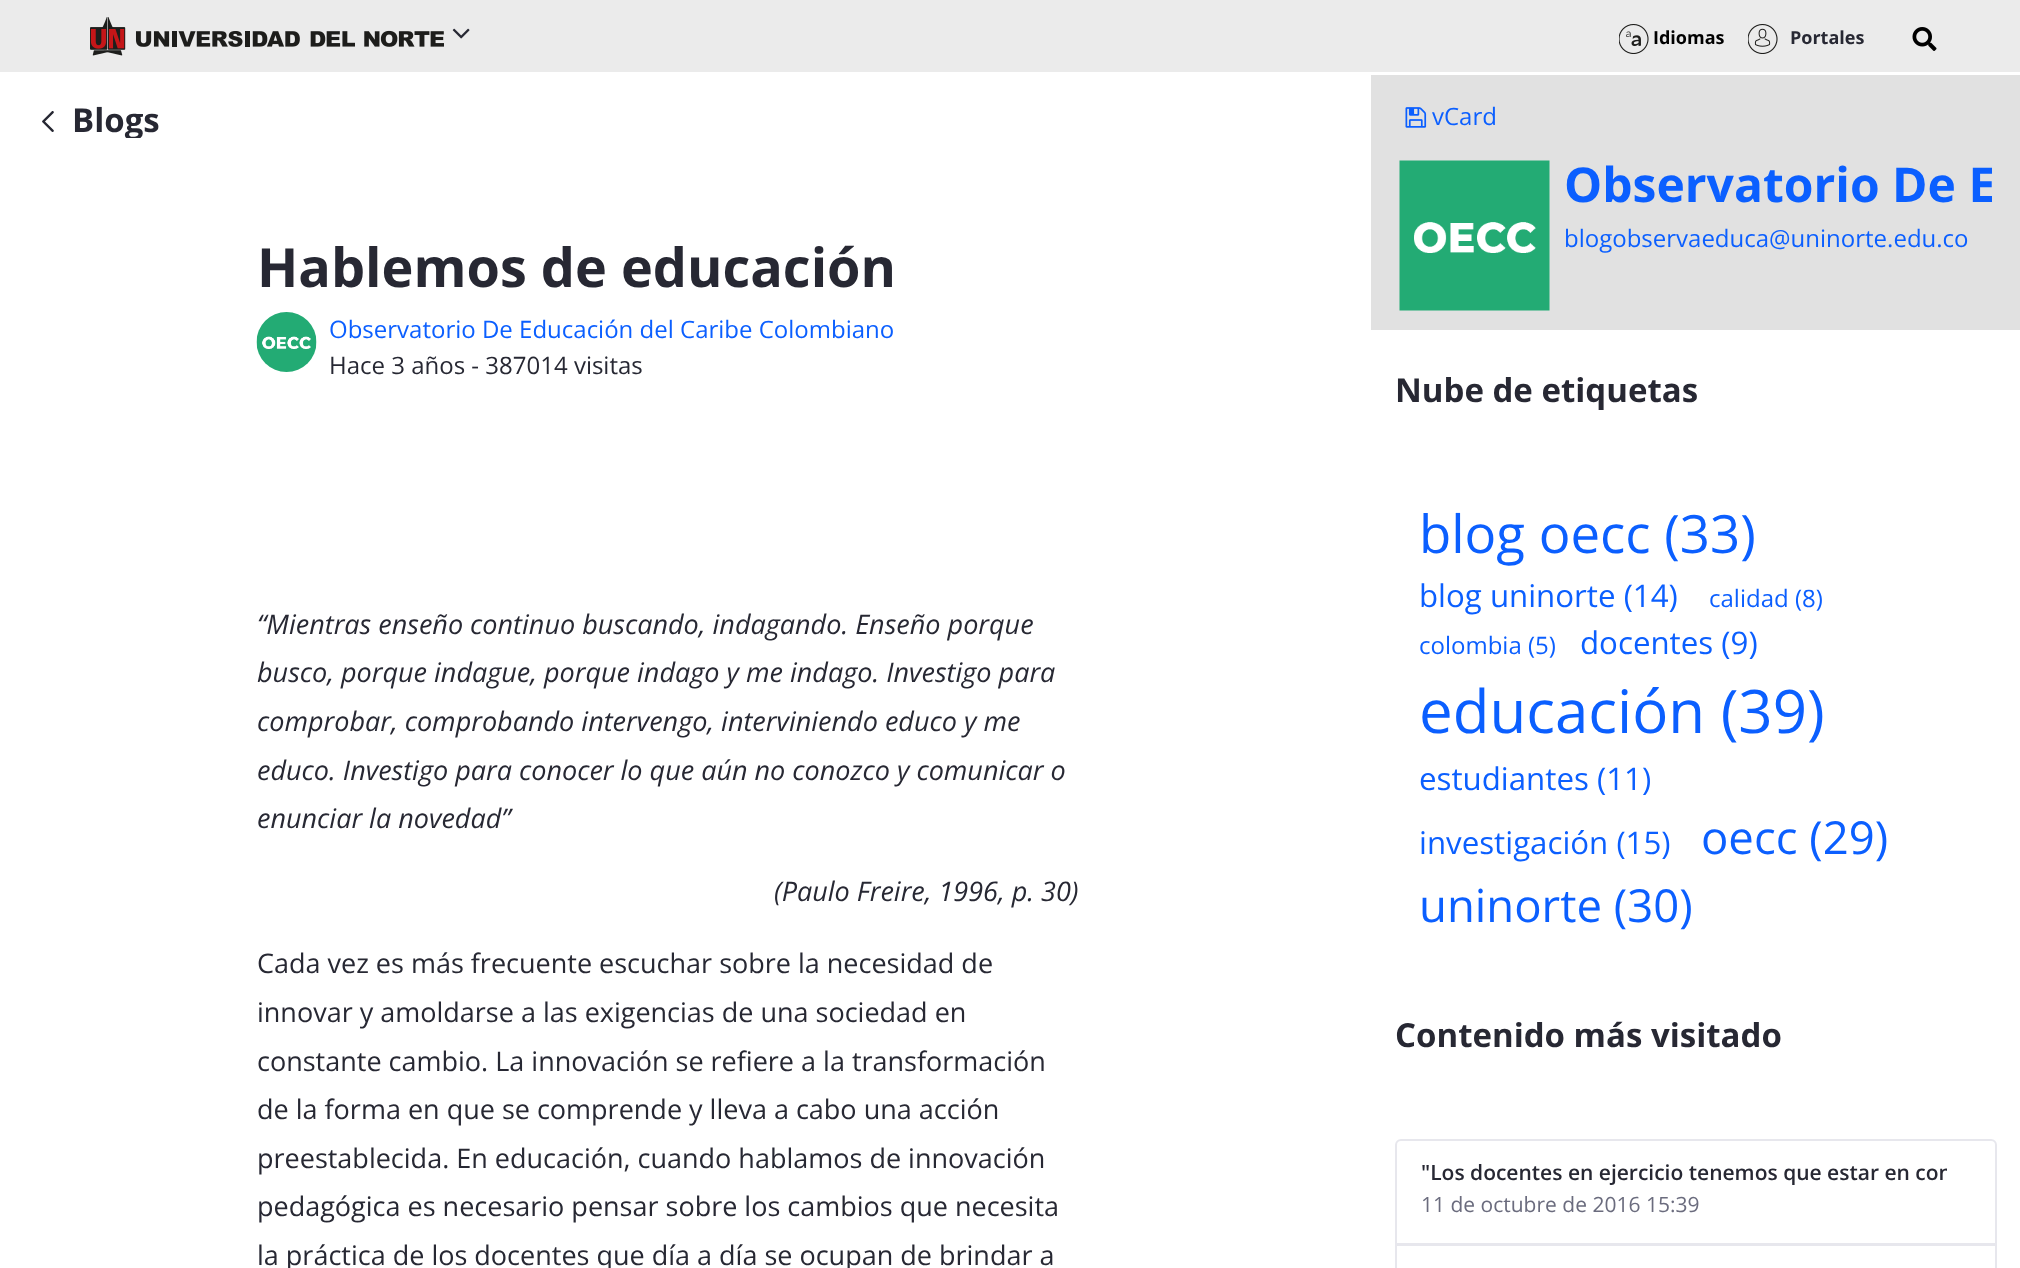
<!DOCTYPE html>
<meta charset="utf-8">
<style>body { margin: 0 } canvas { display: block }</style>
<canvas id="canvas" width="2020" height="1268"></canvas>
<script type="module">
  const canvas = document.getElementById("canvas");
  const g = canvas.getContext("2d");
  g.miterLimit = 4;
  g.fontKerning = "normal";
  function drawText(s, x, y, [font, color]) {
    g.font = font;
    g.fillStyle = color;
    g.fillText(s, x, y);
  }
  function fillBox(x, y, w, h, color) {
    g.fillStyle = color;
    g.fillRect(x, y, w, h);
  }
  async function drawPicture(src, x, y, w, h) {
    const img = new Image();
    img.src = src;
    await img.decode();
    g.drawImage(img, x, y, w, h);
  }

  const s1 = ["bold 18px Open Sans", "#000000"];
  const s2 = ["bold 18px Open Sans", "#272833"];
  const s3 = ["bold 33px Open Sans", "#272833"];
  const s4 = ["bold 54px Open Sans", "#272833"];
  const s5 = ["24px Open Sans", "#0B5FFF"];
  const s6 = ["24px Open Sans", "#272833"];
  const s7 = ["italic 27px Open Sans", "#272833"];
  const s8 = ["27px Open Sans", "#272833"];
  const s9 = ["bold 48px Open Sans", "#0B5FFF"];
  const s10 = ["52.75px Open Sans", "#0B5FFF"];
  const s11 = ["31.25px Open Sans", "#0B5FFF"];
  const s12 = ["60px Open Sans", "#0B5FFF"];
  const s13 = ["45.5px Open Sans", "#0B5FFF"];
  const s14 = ["600 21px Open Sans", "#272833"];
  const s15 = ["21px Open Sans", "#6B6C7E"];

  fillBox(0, 0, 2020, 1268, "#FFFFFF");
  fillBox(0, 0, 2020, 72, "#EBEBEB");
  await drawPicture("pic1.png", 90, 17, 354, 39);
  await drawPicture("pic2.png", 452, 28, 18, 11);
  await drawPicture("pic3.png", 1619, 24, 30, 30);
  drawText("Idiomas", 1653, 44, s1);
  await drawPicture("pic4.png", 1748, 24, 30, 30);
  drawText("Portales", 1790, 44, s2);
  await drawPicture("pic5.png", 1912, 27, 25, 24);
  await drawPicture("pic6.png", 42, 111, 12, 21);
  g.save();
  g.beginPath();
  g.rect(72, 99, 1178, 39);
  g.clip();
  drawText("Blogs", 72, 132, s3);
  g.restore();
  drawText("Hablemos de educación", 257, 287, s4);
  await drawPicture("pic7.png", 256, 312, 61, 60);
  drawText("Observatorio De Educación del Caribe Colombiano", 329, 338, s5);
  drawText("Hace 3 años - 387014 visitas", 329, 374, s6);
  drawText("“Mientras enseño continuo buscando, indagando. Enseño porque", 257, 634, s7);
  drawText("busco, porque indague, porque indago y me indago. Investigo para", 257, 682, s7);
  drawText("comprobar, comprobando intervengo, interviniendo educo y me", 257, 731, s7);
  drawText("educo. Investigo para conocer lo que aún no conozco y comunicar o", 257, 780, s7);
  drawText("enunciar la novedad”", 257, 828, s7);
  drawText("(Paulo Freire, 1996, p. 30)", 774, 901, s7);
  drawText("Cada vez es más frecuente escuchar sobre la necesidad de", 257, 973, s8);
  drawText("innovar y amoldarse a las exigencias de una sociedad en", 257, 1022, s8);
  drawText("constante cambio. La innovación se refiere a la transformación", 257, 1071, s8);
  drawText("de la forma en que se comprende y lleva a cabo una acción", 257, 1119, s8);
  drawText("preestablecida. En educación, cuando hablamos de innovación", 257, 1168, s8);
  drawText("pedagógica es necesario pensar sobre los cambios que necesita", 257, 1216, s8);
  drawText("la práctica de los docentes que día a día se ocupan de brindar a", 257, 1265, s8);
  fillBox(1371, 75, 649, 255, "#E1E1E1");
  await drawPicture("pic8.png", 1405, 107, 22, 21);
  drawText("vCard", 1432, 125, s5);
  await drawPicture("pic9.png", 1399, 160, 151, 151);
  g.save();
  g.beginPath();
  g.rect(1565, 161, 427, 60);
  g.clip();
  drawText("Observatorio De E", 1564, 202, s9);
  g.restore();
  drawText("blogobservaeduca@uninorte.edu.co", 1564, 247, s5);
  drawText("Nube de etiquetas", 1395, 402, s3);
  drawText("blog oecc (33)", 1419, 553, s10);
  drawText("blog uninorte (14)", 1419, 607, s11);
  drawText("calidad (8)", 1709, 607, s5);
  drawText("colombia (5)", 1419, 654, s5);
  drawText("docentes (9)", 1580, 654, s11);
  drawText("educación (39)", 1419, 733, s12);
  drawText("estudiantes (11)", 1419, 790, s11);
  drawText("investigación (15)", 1419, 854, s11);
  drawText("oecc (29)", 1701, 854, s13);
  drawText("uninorte (30)", 1419, 922, s13);
  drawText("Contenido más visitado", 1395, 1047, s3);
  g.beginPath();
  g.roundRect(1396, 1140, 600, 104, [5, 5, 0, 0]);
  g.strokeStyle = "#E7E7ED";
  g.lineWidth = 2;
  g.stroke();
  g.save();
  g.beginPath();
  g.rect(1421, 1158, 526, 30);
  g.clip();
  drawText("\"Los docentes en ejercicio tenemos que estar en con", 1421, 1180, s14);
  g.restore();
  drawText("11 de octubre de 2016 15:39", 1421, 1212, s15);
  g.strokeRect(1396, 1245, 600, 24);
</script>
